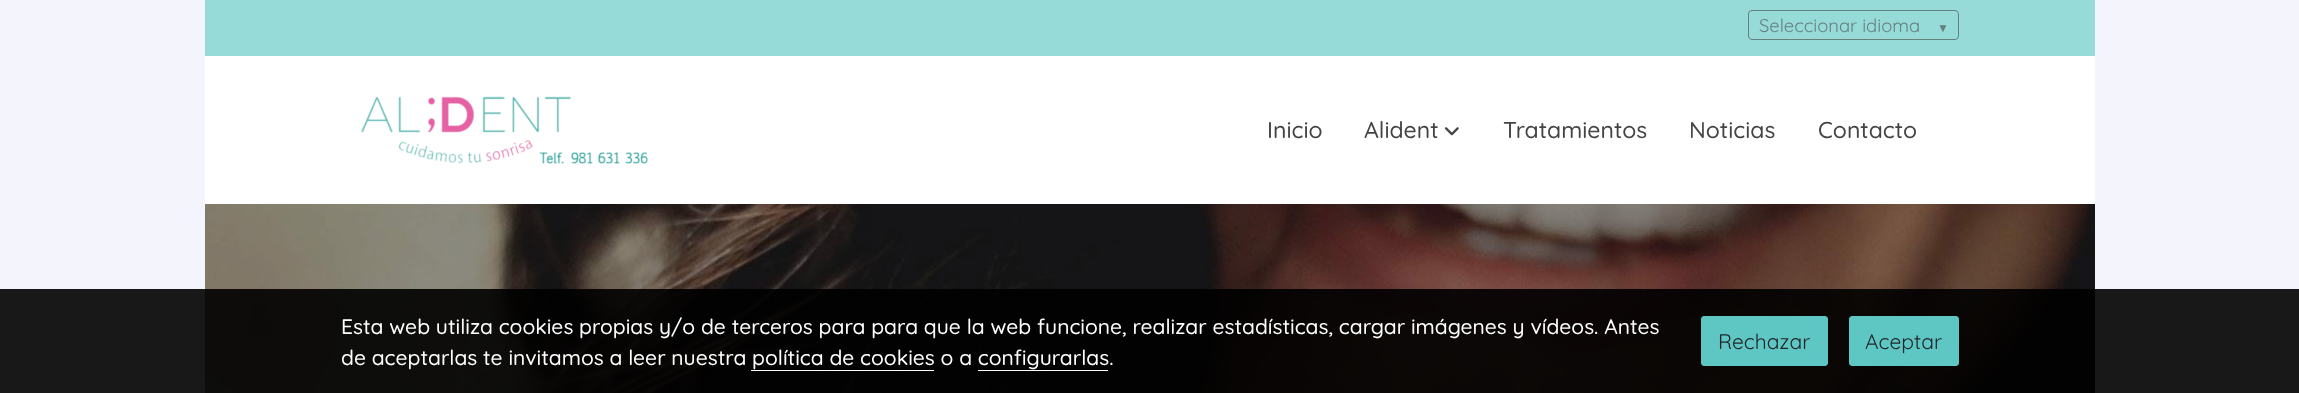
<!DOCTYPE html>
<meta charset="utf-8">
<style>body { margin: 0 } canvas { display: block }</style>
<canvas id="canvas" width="2299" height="393"></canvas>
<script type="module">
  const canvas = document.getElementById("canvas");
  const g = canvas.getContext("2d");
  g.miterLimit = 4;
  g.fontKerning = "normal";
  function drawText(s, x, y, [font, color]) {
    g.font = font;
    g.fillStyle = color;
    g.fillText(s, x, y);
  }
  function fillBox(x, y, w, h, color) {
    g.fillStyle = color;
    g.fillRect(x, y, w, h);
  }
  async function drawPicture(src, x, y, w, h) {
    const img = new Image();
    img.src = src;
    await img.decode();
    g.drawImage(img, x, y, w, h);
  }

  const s1 = ["18.4px Quicksand", "#658080"];
  const s2 = ["12px Liberation Sans", "#658080"];
  const s3 = ["500 23px Quicksand", "#444444"];
  const s4 = ["500 21px Quicksand", "#FFFFFF"];
  const s5 = ["21px Quicksand", "#212529"];

  fillBox(0, 0, 2299, 393, "#F4F5FC");
  fillBox(205, 0, 1890, 56, "#97DBD9");
  await drawPicture("pic1.png", 205, 204, 1890, 189);
  g.beginPath();
  g.roundRect(1748.5, 10.5, 210, 29, 3.5);
  g.strokeStyle = "#658080";
  g.stroke();
  drawText("Seleccionar idioma", 1759, 32, s1);
  drawText("▼", 1937, 32, s2);
  fillBox(205, 56, 1890, 148, "#FFFFFF");
  await drawPicture("pic2.png", 361, 96, 287, 68);
  drawText("Inicio", 1267, 138, s3);
  drawText("Alident", 1364, 138, s3);
  await drawPicture("pic3.png", 1444, 127, 15, 9);
  drawText("Tratamientos", 1503, 138, s3);
  drawText("Noticias", 1689, 138, s3);
  drawText("Contacto", 1818, 138, s3);
  fillBox(0, 289, 2299, 104, "rgba(0, 0, 0, 0.9)");
  drawText("Esta web utiliza cookies propias y/o de terceros para para que la web funcione, realizar estadísticas, cargar imágenes y vídeos. Antes", 341, 334, s4);
  drawText("de aceptarlas te invitamos a leer nuestra política de cookies o a configurarlas.", 341, 365, s4);
  fillBox(751, 370, 183, 1, "#FFFFFF");
  fillBox(978, 370, 130, 1, "#FFFFFF");
  g.fillStyle = "#5EC7C4";
  g.beginPath();
  g.roundRect(1701.5, 316.5, 126, 49, 2.5);
  g.fill();
  g.strokeStyle = "#5EC7C4";
  g.stroke();
  drawText("Rechazar", 1718, 349, s5);
  g.fillStyle = "#5EC7C4";
  g.beginPath();
  g.roundRect(1849.5, 316.5, 109, 49, 2.5);
  g.fill();
  g.stroke();
  drawText("Aceptar", 1865, 349, s5);
</script>
